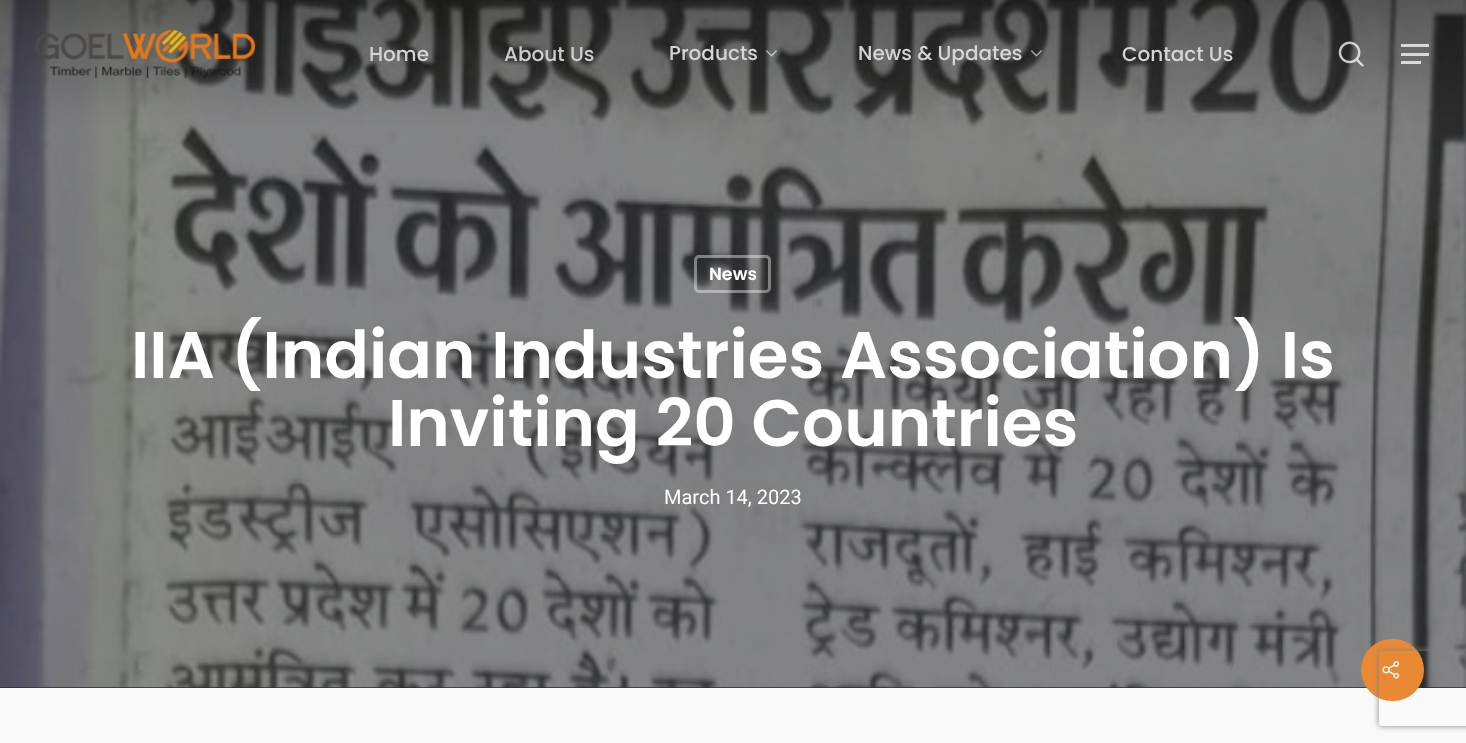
<!DOCTYPE html>
<meta charset="utf-8">
<style>body { margin: 0 } canvas { display: block }</style>
<canvas id="canvas" width="1466" height="743"></canvas>
<script type="module">
  const canvas = document.getElementById("canvas");
  const g = canvas.getContext("2d");
  g.miterLimit = 4;
  g.fontKerning = "normal";
  function drawText(s, x, y, [font, color]) {
    g.font = font;
    g.fillStyle = color;
    g.fillText(s, x, y);
  }
  function fillBox(x, y, w, h, color) {
    g.fillStyle = color;
    g.fillRect(x, y, w, h);
  }
  function fillRounded(x, y, w, h, r, color) {
    g.fillStyle = color;
    g.beginPath();
    g.roundRect(x, y, w, h, r);
    g.fill();
  }
  async function drawPicture(src, x, y, w, h) {
    const img = new Image();
    img.src = src;
    await img.decode();
    g.drawImage(img, x, y, w, h);
  }

  const s1 = ["500 20px Poppins", "#D5D5D5"];
  const s2 = ["500 20px Poppins", "#CDCDCD"];
  const s3 = ["600 17.5px Poppins", "#FFFFFF"];
  const s4 = ["600 65.9px Poppins", "#FFFFFF"];
  const s5 = ["20px Roboto", "#FFFFFF"];

  fillBox(0, 0, 1466, 743, "#F9F9F9");
  fillBox(0, 687, 1466, 1, "#2D2D2D");
  await drawPicture("pic5.png", 0, 0, 1466, 688);
  await drawPicture("pic1.png", 35, 30, 220, 48);
  drawText("Home", 369, 61, s1);
  drawText("About Us", 504, 61, s2);
  drawText("Products", 669, 60, s1);
  await drawPicture("pic2.png", 766, 50, 11, 7);
  drawText("News & Updates", 858, 60, s1);
  await drawPicture("pic3.png", 1031, 50, 11, 7);
  drawText("Contact Us", 1122, 61, s1);
  await drawPicture("pic4.png", 1338, 41, 26, 26);
  fillBox(1401, 44, 28, 3, "#D9D9D9");
  fillBox(1401, 61, 20, 3, "#DADADA");
  fillBox(1401, 53, 28, 3, "rgba(255, 255, 255, 0.75)");
  g.beginPath();
  g.roundRect(695.5, 256.5, 74, 35, 3.5);
  g.strokeStyle = "rgba(255, 255, 255, 0.4)";
  g.lineWidth = 3;
  g.stroke();
  drawText("News", 709, 280, s3);
  drawText("IIA (Indian Industries Association) Is", 131, 378, s4);
  drawText("Inviting 20 Countries", 388, 446, s4);
  drawText("March 14, 2023", 664, 504, s5);
  fillRounded(1361, 639, 63, 62, 31, "#EA8934");
  await drawPicture("pic6.png", 1382, 661, 18, 18);
  g.save();
  g.beginPath();
  g.moveTo(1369, 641);
  g.lineTo(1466, 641);
  g.lineTo(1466, 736);
  g.lineTo(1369, 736);
  g.closePath();
  g.moveTo(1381.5, 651);
  g.lineTo(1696.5, 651);
  g.bezierCurveTo(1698, 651, 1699, 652, 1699, 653.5);
  g.lineTo(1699, 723.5);
  g.bezierCurveTo(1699, 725, 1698, 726, 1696.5, 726);
  g.lineTo(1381.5, 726);
  g.bezierCurveTo(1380, 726, 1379, 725, 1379, 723.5);
  g.lineTo(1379, 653.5);
  g.bezierCurveTo(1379, 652, 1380, 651, 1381.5, 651);
  g.closePath();
  g.clip("evenodd");
  g.fillStyle = "#808080";
  g.filter = "blur(3px)";
  g.beginPath();
  g.roundRect(1379, 651, 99, 75, 2.5);
  g.fill();
  g.filter = "none";
  g.restore();
</script>
